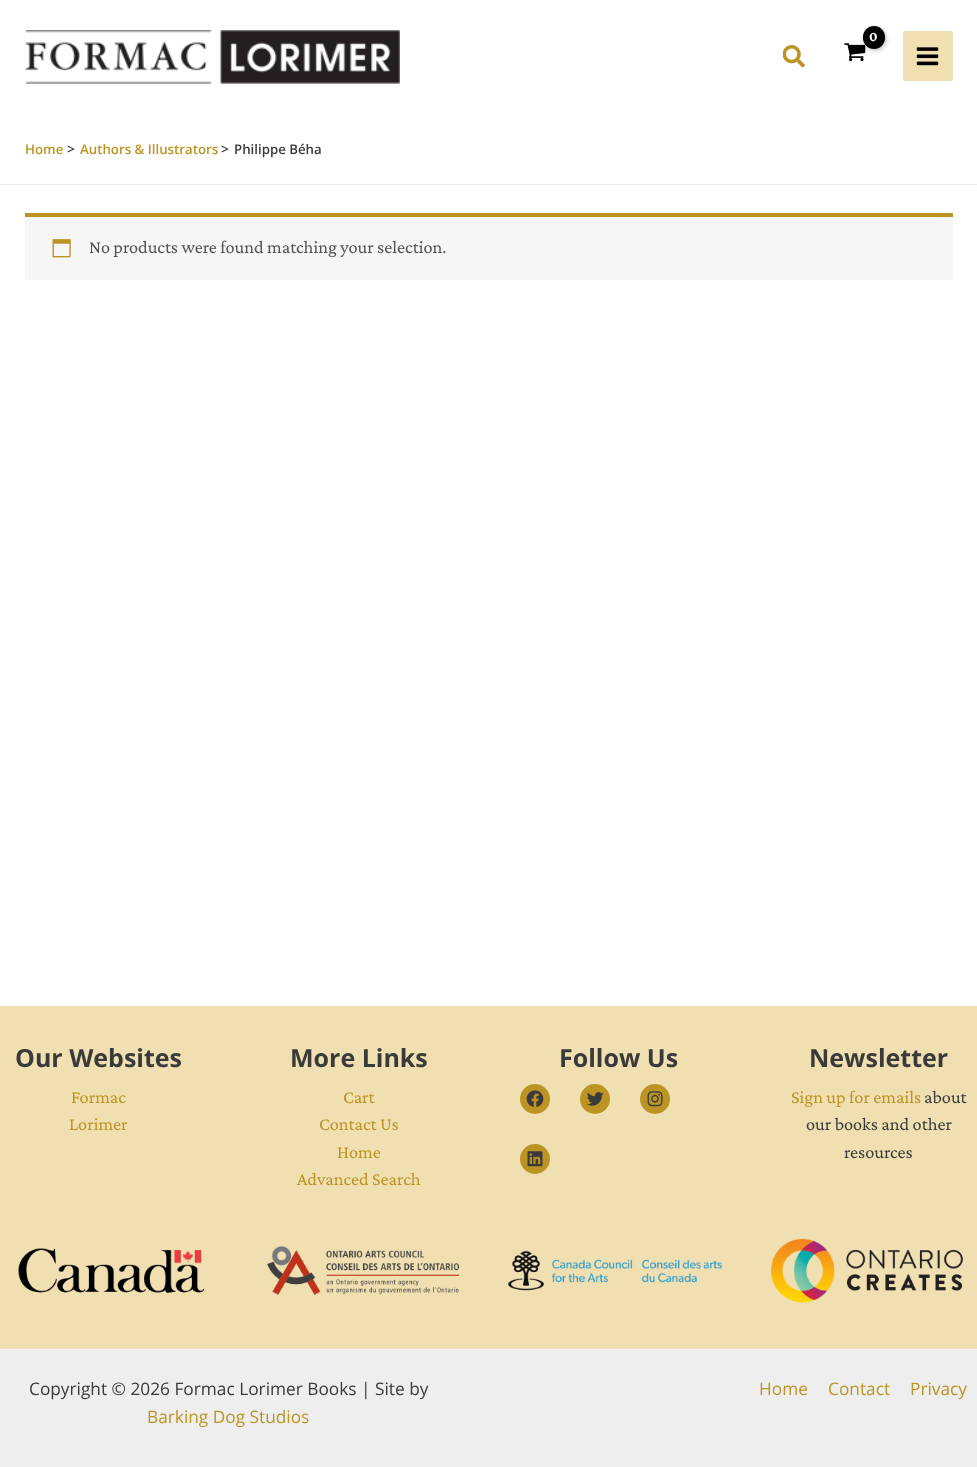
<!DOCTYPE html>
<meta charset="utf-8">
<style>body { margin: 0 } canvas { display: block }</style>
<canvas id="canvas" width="977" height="1467"></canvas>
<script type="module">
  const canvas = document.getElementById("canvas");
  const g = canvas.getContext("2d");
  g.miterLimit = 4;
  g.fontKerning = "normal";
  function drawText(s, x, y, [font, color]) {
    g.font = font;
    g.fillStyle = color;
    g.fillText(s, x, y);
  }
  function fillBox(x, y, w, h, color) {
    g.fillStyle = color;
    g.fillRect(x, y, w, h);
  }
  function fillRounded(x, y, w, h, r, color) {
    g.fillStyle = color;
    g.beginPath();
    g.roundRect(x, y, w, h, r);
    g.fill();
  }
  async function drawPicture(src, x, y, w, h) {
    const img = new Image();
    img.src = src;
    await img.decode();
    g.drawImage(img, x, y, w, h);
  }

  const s1 = ["bold 14px Crimson Pro", "#FFFFFF"];
  const s2 = ["600 13.25px Open Sans", "#BC9424"];
  const s3 = ["600 14px Open Sans", "#3A3A3A"];
  const s4 = ["600 13.25px Open Sans", "#3A3A3A"];
  const s5 = ["18.25px Crimson Pro", "#515151"];
  const s6 = ["bold 25px Open Sans", "#3A3A3A"];
  const s7 = ["18.25px Crimson Pro", "#BC9424"];
  const s8 = ["18.25px Crimson Pro", "#3A3A3A"];
  const s9 = ["17.3px Open Sans", "#3A3A3A"];
  const s10 = ["17.3px Open Sans", "#BC9424"];

  fillBox(0, 0, 977, 1467, "#FFFFFF");
  await drawPicture("pic1.png", 25, 30, 375, 54);
  await drawPicture("pic2.png", 844, 43, 22, 18);
  g.fillStyle = "rgba(0, 0, 0, 0.3)";
  g.filter = "blur(2px)";
  g.beginPath();
  g.roundRect(864, 28, 22, 22, 11);
  g.fill();
  g.filter = "none";
  fillRounded(863, 26, 22, 23, 11, "#000000");
  g.letterSpacing = "-1px";
  drawText("0", 869, 41, s1);
  fillRounded(903, 31, 50, 50, 2.5, "#F0DFB1");
  await drawPicture("pic3.png", 916, 47, 23, 19);
  await drawPicture("pic4.png", 783, 45, 22, 23);
  fillBox(0, 184, 977, 1, "#EAEAEA");
  g.letterSpacing = "0px";
  drawText("Home", 25, 154, s2);
  drawText(">", 67, 154, s3);
  drawText("Authors & Illustrators", 80, 154, s2);
  drawText(">", 221, 154, s3);
  drawText("Philippe Béha", 234, 154, s4);
  fillBox(25, 217, 928, 63, "#F7F6F7");
  fillBox(25, 213, 928, 4, "#BC9424");
  await drawPicture("pic5.png", 52, 239, 19, 19);
  drawText("No products were found matching your selection.", 89, 253, s5);
  fillBox(0, 1006, 977, 343, "#F0DFB1");
  drawText("Our Websites", 15, 1067, s6);
  drawText("Formac", 71, 1103, s7);
  drawText("Lorimer", 69, 1130, s7);
  drawText("More Links", 290, 1067, s6);
  drawText("Cart", 343, 1103, s7);
  drawText("Contact Us", 319, 1130, s7);
  drawText("Home", 337, 1158, s7);
  drawText("Advanced Search", 297, 1185, s7);
  drawText("Follow Us", 559, 1067, s6);
  g.fillStyle = "#BC9424";
  g.beginPath();
  g.arc(535, 1099, 15, 0, Math.PI * 2);
  g.fill();
  await drawPicture("pic6.png", 526, 1090, 18, 17);
  g.beginPath();
  g.arc(595, 1099, 15, 0, Math.PI * 2);
  g.fill();
  await drawPicture("pic7.png", 587, 1092, 17, 14);
  g.beginPath();
  g.arc(655, 1099, 15, 0, Math.PI * 2);
  g.fill();
  await drawPicture("pic8.png", 647, 1091, 16, 16);
  g.beginPath();
  g.arc(535, 1159, 15, 0, Math.PI * 2);
  g.fill();
  await drawPicture("pic9.png", 527, 1151, 16, 16);
  drawText("Newsletter", 809, 1067, s6);
  drawText("Sign up for emails", 791, 1103, s7);
  drawText("about", 924, 1103, s8);
  drawText("our books and other", 806, 1130, s8);
  drawText("resources", 844, 1158, s8);
  await drawPicture("pic10.png", 18, 1248, 186, 45);
  await drawPicture("pic11.png", 267, 1246, 192, 49);
  await drawPicture("pic12.png", 508, 1250, 214, 41);
  await drawPicture("pic13.png", 771, 1239, 192, 64);
  fillBox(0, 1350, 977, 117, "#EEEEEE");
  fillBox(0, 1349, 977, 1, "#F2F5F7");
  drawText("Copyright © 2026 Formac Lorimer Books | Site by", 29, 1395, s9);
  drawText("Barking Dog Studios", 147, 1423, s10);
  drawText("Home", 759, 1395, s10);
  drawText("Contact", 828, 1395, s10);
  drawText("Privacy", 910, 1395, s10);
</script>
